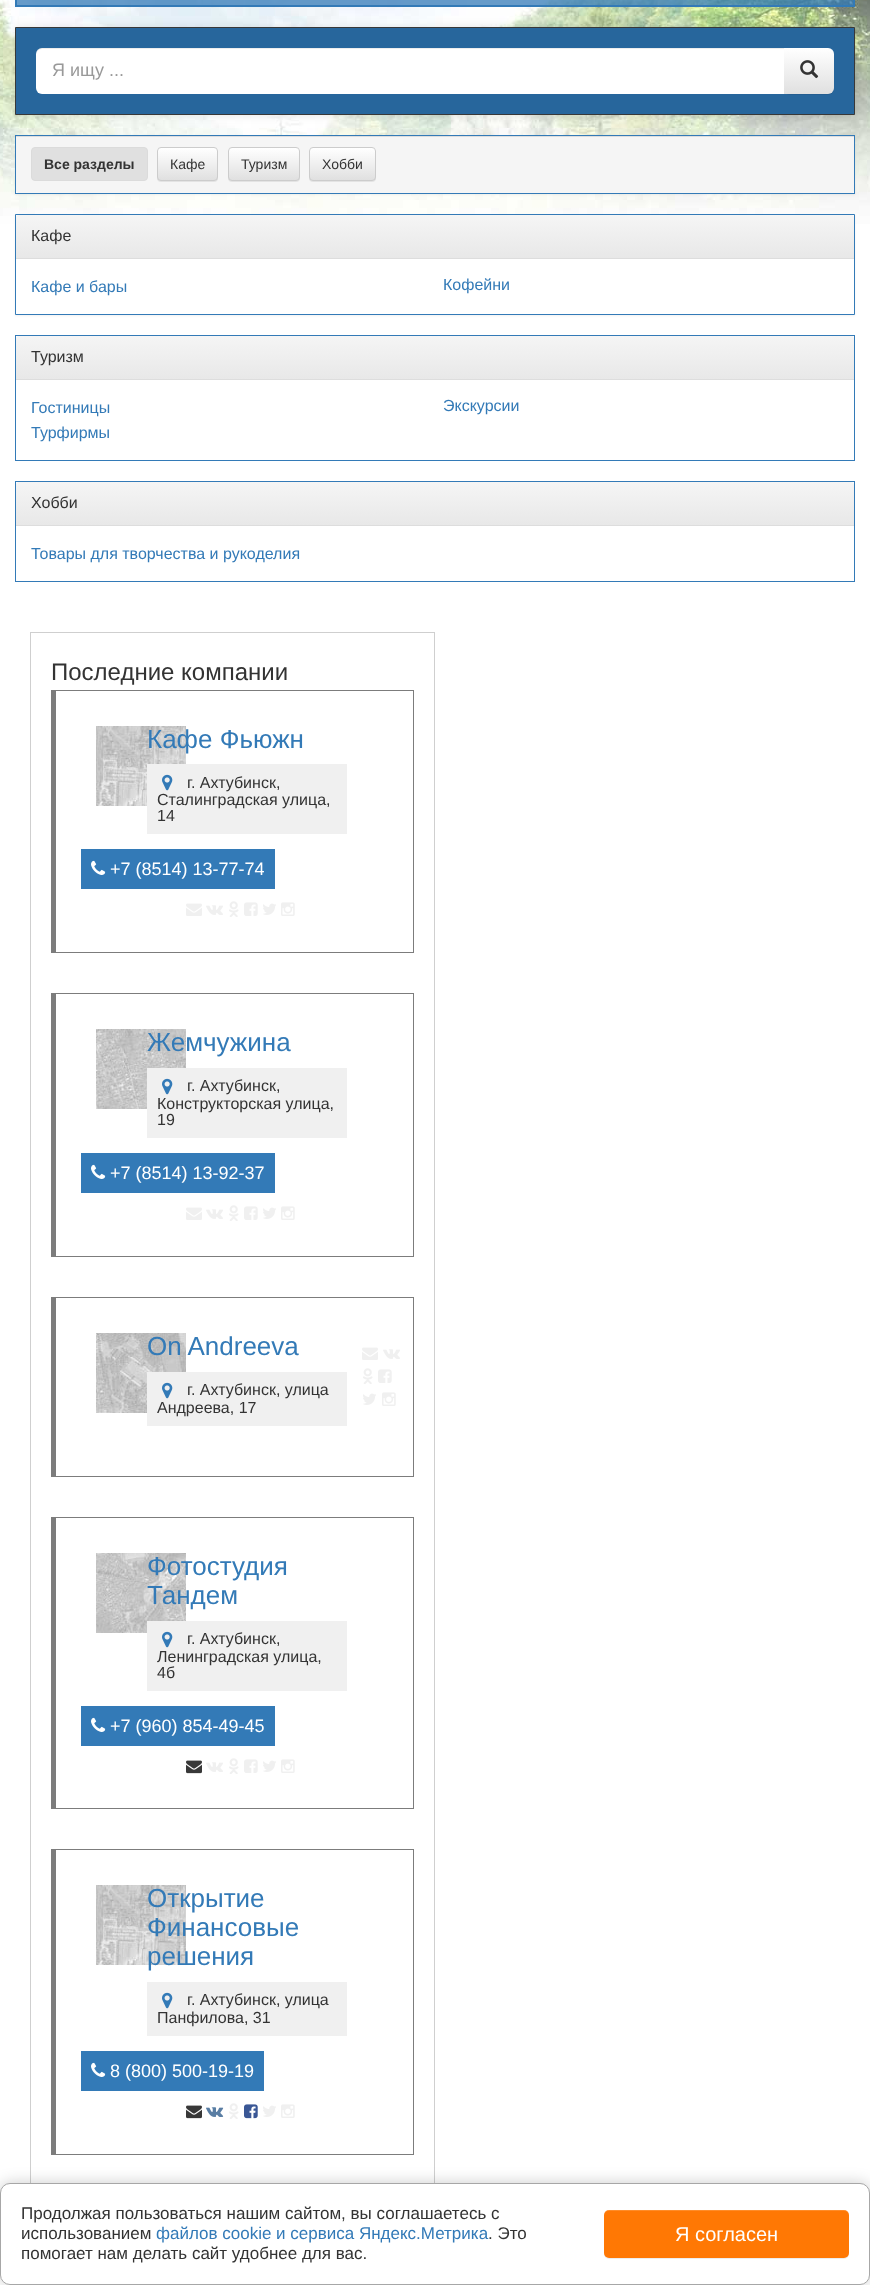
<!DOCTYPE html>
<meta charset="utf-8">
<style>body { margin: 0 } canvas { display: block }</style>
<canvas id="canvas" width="870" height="2285"></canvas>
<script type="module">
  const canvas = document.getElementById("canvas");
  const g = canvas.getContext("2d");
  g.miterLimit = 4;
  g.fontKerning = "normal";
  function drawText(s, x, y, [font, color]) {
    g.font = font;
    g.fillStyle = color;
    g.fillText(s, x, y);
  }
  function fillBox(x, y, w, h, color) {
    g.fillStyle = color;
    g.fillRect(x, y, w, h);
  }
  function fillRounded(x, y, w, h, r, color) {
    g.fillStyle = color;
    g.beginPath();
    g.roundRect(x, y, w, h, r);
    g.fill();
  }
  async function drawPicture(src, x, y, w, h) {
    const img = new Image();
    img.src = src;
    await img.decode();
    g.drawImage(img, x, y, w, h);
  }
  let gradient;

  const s1 = ["18px Liberation Sans", "#999999"];
  const s2 = ["bold 14px Liberation Sans", "#333333"];
  const s3 = ["14px Liberation Sans", "#333333"];
  const s4 = ["16px Liberation Sans", "#333333"];
  const s5 = ["16px Liberation Sans", "#337AB7"];
  const s6 = ["24px Liberation Sans", "#333333"];
  const s7 = ["26px Liberation Sans", "#337AB7"];
  const s8 = ["18px Liberation Sans", "#FFFFFF"];
  const s9 = ["17px Liberation Sans", "#333333"];
  const s10 = ["17px Liberation Sans", "#337AB7"];
  const s11 = ["20px Liberation Sans", "#FFFFFF"];

  fillBox(0, 0, 870, 2285, "#FFFFFF");
  await drawPicture("pic1.png", 0, 0, 870, 224);
  g.fillStyle = "rgba(51, 122, 183, 0.75)";
  g.beginPath();
  g.rect(16, -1, 838, 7);
  g.fill();
  g.strokeStyle = "#337AB7";
  g.lineWidth = 2;
  g.stroke();
  g.fillStyle = "rgba(0, 0, 0, 0.1)";
  g.filter = "blur(5px)";
  g.beginPath();
  g.rect(15, 27, 840, 88);
  g.fill();
  g.filter = "none";
  g.fillStyle = "#27669C";
  g.beginPath();
  g.rect(15.5, 27.5, 839, 87);
  g.fill();
  g.strokeStyle = "#383838";
  g.lineWidth = 1;
  g.stroke();
  g.fillStyle = "#FFFFFF";
  g.beginPath();
  g.roundRect(36, 48, 749, 46, [6, 0, 0, 6]);
  g.fill();
  g.fillStyle = "rgba(0, 0, 0, 0.07)";
  g.beginPath();
  g.moveTo(42, 49);
  g.lineTo(785, 49);
  g.lineTo(785, 48);
  g.lineTo(42, 48);
  g.bezierCurveTo(38, 48, 36, 51, 36, 55);
  g.bezierCurveTo(36, 52, 39, 49, 42, 49);
  g.closePath();
  g.fill();
  drawText("Я ищу ...", 52, 76, s1);
  g.fillStyle = "rgba(0, 0, 0, 0.07)";
  g.filter = "blur(0.5px)";
  g.beginPath();
  g.roundRect(784, 49, 50, 46, 6);
  g.fill();
  g.filter = "none";
  gradient = g.createLinearGradient(809, 48, 809, 94);
  gradient.addColorStop(0, "#FFFFFF");
  gradient.addColorStop(1, "#E0E0E0");
  g.fillStyle = gradient;
  g.beginPath();
  g.roundRect(784, 48, 50, 46, [0, 6, 6, 0]);
  g.fill();
  g.fillStyle = "rgba(255, 255, 255, 0.15)";
  g.beginPath();
  g.moveTo(784, 49);
  g.lineTo(828, 49);
  g.bezierCurveTo(831, 49, 834, 52, 834, 55);
  g.lineTo(834, 54);
  g.bezierCurveTo(834, 51, 831, 48, 828, 48);
  g.lineTo(784, 48);
  g.closePath();
  g.fill();
  await drawPicture("pic2.png", 800, 60, 19, 19);
  g.fillStyle = "rgba(0, 0, 0, 0.05)";
  g.filter = "blur(1px)";
  g.beginPath();
  g.rect(15, 136, 840, 59);
  g.fill();
  g.filter = "none";
  fillBox(16, 190, 838, 3, "#FFFFFF");
  g.strokeStyle = "#337AB7";
  g.strokeRect(15.5, 135.5, 839, 58);
  g.fillStyle = "#F5F5F5";
  g.beginPath();
  g.roundRect(16, 136, 838, 57, [0, 0, 3, 3]);
  g.fill();
  fillBox(16, 136, 838, 1, "#DDDDDD");
  g.fillStyle = "#E0E0E0";
  g.beginPath();
  g.roundRect(31.5, 147.5, 116, 33, 3.5);
  g.fill();
  g.strokeStyle = "#DBDBDB";
  g.stroke();
  drawText("Все разделы", 44, 169, s2);
  g.fillStyle = "rgba(0, 0, 0, 0.07)";
  g.filter = "blur(0.5px)";
  g.beginPath();
  g.roundRect(157, 148, 61, 34, 4);
  g.fill();
  g.filter = "none";
  g.save();
  g.beginPath();
  g.roundRect(157, 147, 61, 34, 4);
  g.clip();
  gradient = g.createLinearGradient(188, 148, 188, 180);
  gradient.addColorStop(0, "#FFFFFF");
  gradient.addColorStop(1, "#E0E0E0");
  g.fillStyle = gradient;
  g.fillRect(157, 148, 61, 32);
  g.restore();
  g.beginPath();
  g.roundRect(157.5, 147.5, 60, 33, 3.5);
  g.strokeStyle = "#CCCCCC";
  g.stroke();
  drawText("Кафе", 170, 169, s3);
  g.fillStyle = "rgba(0, 0, 0, 0.07)";
  g.filter = "blur(0.5px)";
  g.beginPath();
  g.roundRect(228, 148, 72, 34, 4);
  g.fill();
  g.filter = "none";
  g.save();
  g.beginPath();
  g.roundRect(228, 147, 72, 34, 4);
  g.clip();
  gradient = g.createLinearGradient(264, 148, 264, 180);
  gradient.addColorStop(0, "#FFFFFF");
  gradient.addColorStop(1, "#E0E0E0");
  g.fillStyle = gradient;
  g.fillRect(228, 148, 72, 32);
  g.restore();
  g.beginPath();
  g.roundRect(228.5, 147.5, 71, 33, 3.5);
  g.stroke();
  drawText("Туризм", 241, 169, s3);
  g.fillStyle = "rgba(0, 0, 0, 0.07)";
  g.filter = "blur(0.5px)";
  g.beginPath();
  g.roundRect(309, 148, 67, 34, 4);
  g.fill();
  g.filter = "none";
  g.save();
  g.beginPath();
  g.roundRect(309, 147, 67, 34, 4);
  g.clip();
  gradient = g.createLinearGradient(343, 148, 343, 180);
  gradient.addColorStop(0, "#FFFFFF");
  gradient.addColorStop(1, "#E0E0E0");
  g.fillStyle = gradient;
  g.fillRect(309, 148, 67, 32);
  g.restore();
  g.beginPath();
  g.roundRect(309.5, 147.5, 66, 33, 3.5);
  g.stroke();
  drawText("Хобби", 322, 169, s3);
  g.fillStyle = "rgba(0, 0, 0, 0.05)";
  g.filter = "blur(1px)";
  g.beginPath();
  g.rect(15, 215, 840, 101);
  g.fill();
  g.filter = "none";
  g.fillStyle = "#FFFFFF";
  g.beginPath();
  g.rect(15.5, 214.5, 839, 100);
  g.fill();
  g.strokeStyle = "#337AB7";
  g.stroke();
  gradient = g.createLinearGradient(435, 215, 435, 258);
  gradient.addColorStop(0, "#F5F5F5");
  gradient.addColorStop(1, "#E8E8E8");
  g.fillStyle = gradient;
  g.beginPath();
  g.roundRect(16, 215, 838, 43, [3, 3, 0, 0]);
  g.fill();
  fillBox(16, 258, 838, 1, "#DDDDDD");
  drawText("Кафе", 31, 241, s4);
  drawText("Кафе и бары", 31, 292, s5);
  drawText("Кофейни", 443, 290, s5);
  g.strokeRect(15.5, 335.5, 839, 125);
  gradient = g.createLinearGradient(435, 336, 435, 379);
  gradient.addColorStop(0, "#F5F5F5");
  gradient.addColorStop(1, "#E8E8E8");
  g.fillStyle = gradient;
  g.beginPath();
  g.roundRect(16, 336, 838, 43, [3, 3, 0, 0]);
  g.fill();
  fillBox(16, 379, 838, 1, "#DDDDDD");
  drawText("Туризм", 31, 362, s4);
  drawText("Гостиницы", 31, 413, s5);
  drawText("Экскурсии", 443, 411, s5);
  drawText("Турфирмы", 31, 438, s5);
  g.strokeRect(15.5, 481.5, 839, 100);
  gradient = g.createLinearGradient(435, 482, 435, 525);
  gradient.addColorStop(0, "#F5F5F5");
  gradient.addColorStop(1, "#E8E8E8");
  g.fillStyle = gradient;
  g.beginPath();
  g.roundRect(16, 482, 838, 43, [3, 3, 0, 0]);
  g.fill();
  fillBox(16, 525, 838, 1, "#DDDDDD");
  drawText("Хобби", 31, 508, s4);
  drawText("Товары для творчества и рукоделия", 31, 559, s5);
  g.strokeStyle = "#CFCFCF";
  g.strokeRect(30.5, 632.5, 404, 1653);
  drawText("Последние компании", 51, 680, s6);
  fillBox(51, 690, 363, 1, "#7C7C7C");
  fillBox(413, 690, 1, 263, "#7C7C7C");
  fillBox(51, 952, 363, 1, "#7C7C7C");
  fillBox(51, 690, 5, 263, "#7C7C7C");
  await drawPicture("pic3.png", 96, 726, 90, 80);
  drawText("Кафе Фьюжн", 147, 748, s7);
  fillBox(147, 764, 200, 70, "#F0F0F0");
  await drawPicture("pic4.png", 162, 774, 11, 17);
  drawText("г. Ахтубинск,", 187, 788, s4);
  drawText("Сталинградская улица,", 157, 805, s4);
  drawText("14", 157, 821, s4);
  fillBox(81, 849, 194, 40, "#337AB7");
  await drawPicture("pic5.png", 91, 860, 15, 15);
  drawText("+7 (8514) 13-77-74", 110, 875, s8);
  await drawPicture("pic6.png", 186, 903, 16, 13);
  await drawPicture("pic7.png", 206, 905, 17, 10);
  await drawPicture("pic8.png", 229, 901, 10, 16);
  await drawPicture("pic9.png", 244, 902, 14, 14);
  await drawPicture("pic10.png", 263, 903, 13, 12);
  await drawPicture("pic11.png", 281, 902, 14, 14);
  fillBox(51, 993, 363, 1, "#7C7C7C");
  fillBox(413, 993, 1, 264, "#7C7C7C");
  fillBox(51, 1256, 363, 1, "#7C7C7C");
  fillBox(51, 993, 5, 264, "#7C7C7C");
  await drawPicture("pic12.png", 96, 1029, 90, 80);
  drawText("Жемчужина", 147, 1051, s7);
  fillBox(147, 1068, 200, 70, "#F0F0F0");
  await drawPicture("pic4.png", 162, 1078, 11, 17);
  drawText("г. Ахтубинск,", 187, 1091, s4);
  drawText("Конструкторская улица,", 157, 1109, s4);
  drawText("19", 157, 1125, s4);
  fillBox(81, 1153, 194, 40, "#337AB7");
  await drawPicture("pic5.png", 91, 1164, 15, 15);
  drawText("+7 (8514) 13-92-37", 110, 1179, s8);
  await drawPicture("pic6.png", 186, 1207, 16, 13);
  await drawPicture("pic7.png", 206, 1209, 17, 10);
  await drawPicture("pic8.png", 229, 1205, 10, 16);
  await drawPicture("pic9.png", 244, 1206, 14, 14);
  await drawPicture("pic10.png", 263, 1207, 13, 12);
  await drawPicture("pic11.png", 281, 1206, 14, 14);
  fillBox(51, 1297, 363, 1, "#7C7C7C");
  fillBox(413, 1297, 1, 180, "#7C7C7C");
  fillBox(51, 1476, 363, 1, "#7C7C7C");
  fillBox(51, 1297, 5, 180, "#7C7C7C");
  await drawPicture("pic13.png", 96, 1333, 90, 80);
  drawText("On Andreeva", 147, 1355, s7);
  fillBox(147, 1372, 200, 54, "#F0F0F0");
  await drawPicture("pic4.png", 162, 1382, 11, 17);
  drawText("г. Ахтубинск, улица", 187, 1395, s4);
  drawText("Андреева, 17", 157, 1413, s4);
  await drawPicture("pic6.png", 362, 1347, 16, 13);
  await drawPicture("pic7.png", 383, 1349, 17, 10);
  await drawPicture("pic8.png", 363, 1368, 10, 16);
  await drawPicture("pic9.png", 378, 1369, 14, 14);
  await drawPicture("pic10.png", 363, 1393, 13, 12);
  await drawPicture("pic11.png", 382, 1392, 14, 14);
  fillBox(51, 1517, 363, 1, "#7C7C7C");
  fillBox(413, 1517, 1, 292, "#7C7C7C");
  fillBox(51, 1808, 363, 1, "#7C7C7C");
  fillBox(51, 1517, 5, 292, "#7C7C7C");
  await drawPicture("pic14.png", 96, 1553, 90, 80);
  drawText("Фотостудия", 147, 1575, s7);
  drawText("Тандем", 147, 1604, s7);
  fillBox(147, 1621, 200, 70, "#F0F0F0");
  await drawPicture("pic4.png", 162, 1631, 11, 17);
  drawText("г. Ахтубинск,", 187, 1644, s4);
  drawText("Ленинградская улица,", 157, 1662, s4);
  drawText("4б", 157, 1678, s4);
  fillBox(81, 1706, 194, 40, "#337AB7");
  await drawPicture("pic5.png", 91, 1717, 15, 15);
  drawText("+7 (960) 854-49-45", 110, 1732, s8);
  await drawPicture("pic15.png", 186, 1760, 16, 14);
  await drawPicture("pic7.png", 206, 1762, 17, 10);
  await drawPicture("pic8.png", 229, 1758, 10, 16);
  await drawPicture("pic9.png", 244, 1759, 14, 14);
  await drawPicture("pic10.png", 263, 1760, 13, 12);
  await drawPicture("pic11.png", 281, 1759, 14, 14);
  fillBox(51, 1849, 363, 1, "#7C7C7C");
  fillBox(413, 1849, 1, 306, "#7C7C7C");
  fillBox(51, 2154, 363, 1, "#7C7C7C");
  fillBox(51, 1849, 5, 306, "#7C7C7C");
  await drawPicture("pic3.png", 96, 1885, 90, 80);
  drawText("Открытие", 147, 1907, s7);
  drawText("Финансовые", 147, 1936, s7);
  drawText("решения", 147, 1965, s7);
  fillBox(147, 1982, 200, 54, "#F0F0F0");
  await drawPicture("pic4.png", 162, 1992, 11, 17);
  drawText("г. Ахтубинск, улица", 187, 2005, s4);
  drawText("Панфилова, 31", 157, 2023, s4);
  fillBox(81, 2051, 183, 40, "#337AB7");
  await drawPicture("pic5.png", 91, 2062, 15, 15);
  drawText("8 (800) 500-19-19", 110, 2077, s8);
  await drawPicture("pic15.png", 186, 2105, 16, 14);
  await drawPicture("pic16.png", 206, 2107, 18, 10);
  await drawPicture("pic8.png", 229, 2103, 10, 16);
  await drawPicture("pic17.png", 244, 2104, 14, 15);
  await drawPicture("pic10.png", 263, 2105, 13, 12);
  await drawPicture("pic11.png", 281, 2104, 14, 14);
  g.fillStyle = "rgba(0, 0, 0, 0.2)";
  g.filter = "blur(7.5px)";
  g.beginPath();
  g.roundRect(0, 2183, 870, 102, 10);
  g.fill();
  g.filter = "none";
  g.fillStyle = "#FFFFFF";
  g.beginPath();
  g.roundRect(0.5, 2183.5, 869, 101, 9.5);
  g.fill();
  g.strokeStyle = "#A7A7A7";
  g.stroke();
  drawText("Продолжая пользоваться нашим сайтом, вы соглашаетесь с", 21, 2219, s9);
  drawText("использованием", 21, 2239, s9);
  drawText("файлов cookie и сервиса Яндекс.Метрика", 156, 2239, s10);
  drawText(". Это", 488, 2239, s9);
  drawText("помогает нам делать сайт удобнее для вас.", 21, 2259, s9);
  g.fillStyle = "rgba(0, 0, 0, 0.07)";
  g.filter = "blur(0.5px)";
  g.beginPath();
  g.roundRect(604, 2211, 245, 48, 5);
  g.fill();
  g.filter = "none";
  fillRounded(604, 2210, 245, 48, 5, "#FF7804");
  g.fillStyle = "rgba(255, 255, 255, 0.15)";
  g.beginPath();
  g.moveTo(609, 2211);
  g.lineTo(844, 2211);
  g.bezierCurveTo(847, 2211, 849, 2213, 849, 2216);
  g.lineTo(849, 2215);
  g.bezierCurveTo(849, 2212, 847, 2210, 844, 2210);
  g.lineTo(609, 2210);
  g.bezierCurveTo(606, 2210, 604, 2212, 604, 2215);
  g.lineTo(604, 2216);
  g.bezierCurveTo(604, 2213, 606, 2211, 609, 2211);
  g.closePath();
  g.fill();
  drawText("Я согласен", 675, 2241, s11);
</script>
